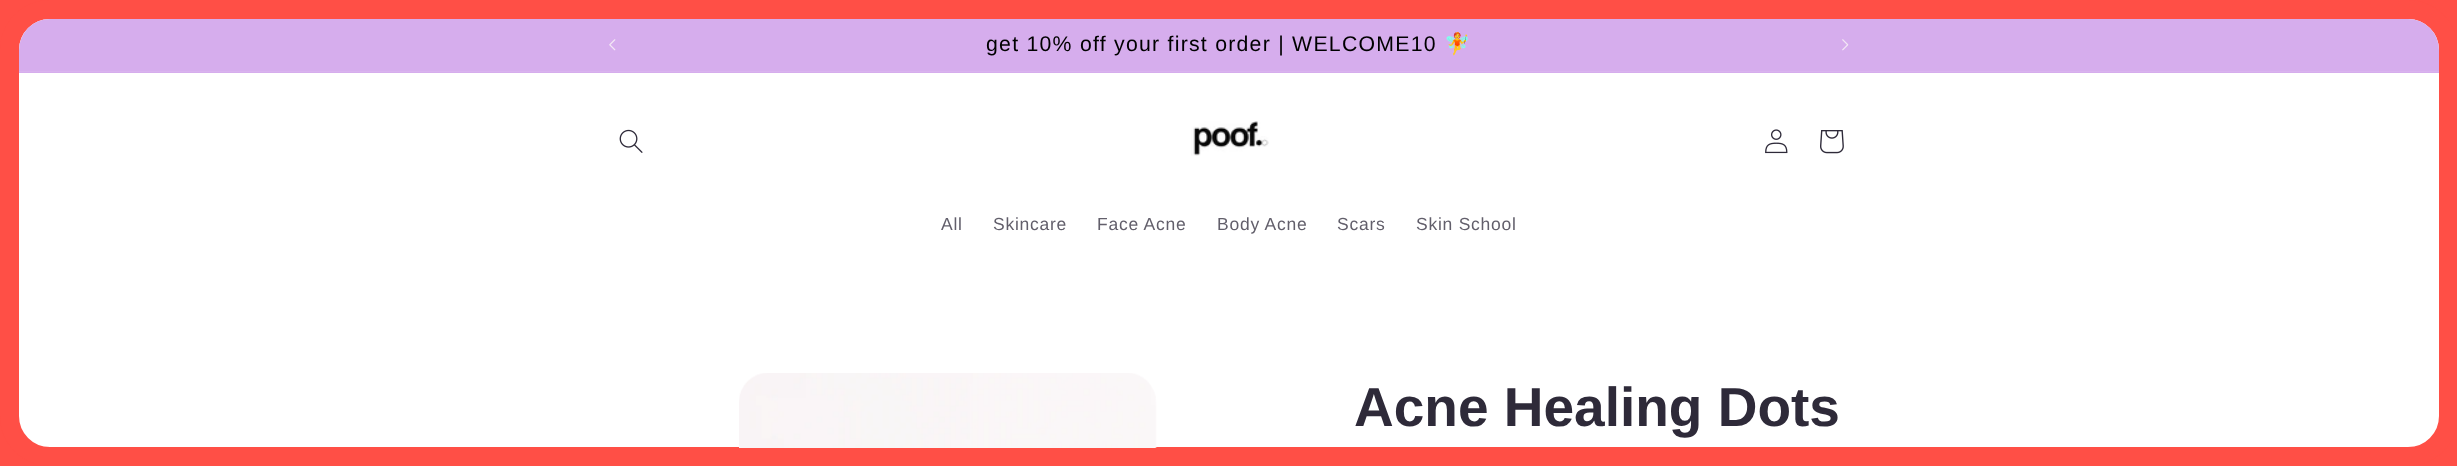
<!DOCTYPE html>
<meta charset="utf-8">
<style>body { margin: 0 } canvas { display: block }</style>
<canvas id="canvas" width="2457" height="466"></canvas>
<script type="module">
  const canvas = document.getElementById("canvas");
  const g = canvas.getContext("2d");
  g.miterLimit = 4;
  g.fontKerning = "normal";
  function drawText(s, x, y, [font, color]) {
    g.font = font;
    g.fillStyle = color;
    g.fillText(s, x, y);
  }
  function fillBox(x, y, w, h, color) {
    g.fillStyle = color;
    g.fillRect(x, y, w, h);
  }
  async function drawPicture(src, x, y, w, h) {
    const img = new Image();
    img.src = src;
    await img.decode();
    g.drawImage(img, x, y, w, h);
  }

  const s1 = ["21.25px Liberation Sans", "#000000"];
  const s2 = ["21.25px Noto Color Emoji", "#000000"];
  const s3 = ["17.5px Liberation Sans", "#625F6B"];
  const s4 = ["bold 55px Liberation Sans", "#2E2A39"];

  fillBox(0, 0, 2457, 466, "#FFFFFF");
  g.strokeStyle = "#FF4F46";
  g.lineWidth = 19;
  g.strokeRect(9.5, 9.5, 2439, 447);
  g.beginPath();
  g.roundRect(9.5, 9.5, 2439, 447, 40.5);
  g.stroke();
  g.fillStyle = "#D6ADED";
  g.beginPath();
  g.roundRect(19, 19, 2420, 54, [31, 31, 0, 0]);
  g.fill();
  fillBox(19, 71, 2420, 1, "#D9B3EE");
  await drawPicture("pic1.png", 609, 39, 7, 12);
  g.letterSpacing = "1.25px";
  drawText("get 10% off your first order | WELCOME10", 986, 51, s1);
  drawText("🧚", 1444, 51, s2);
  await drawPicture("pic2.png", 1842, 39, 7, 12);
  await drawPicture("pic3.png", 619, 129, 24, 24);
  await drawPicture("pic4.png", 1191, 121, 78, 35);
  await drawPicture("pic5.png", 1765, 129, 23, 25);
  await drawPicture("pic6.png", 1820, 130, 24, 24);
  g.letterSpacing = "0.75px";
  drawText("All", 941, 230, s3);
  drawText("Skincare", 993, 230, s3);
  drawText("Face Acne", 1097, 230, s3);
  drawText("Body Acne", 1217, 230, s3);
  drawText("Scars", 1337, 230, s3);
  drawText("Skin School", 1416, 230, s3);
  await drawPicture("pic7.png", 739, 373, 418, 75);
  g.letterSpacing = "0px";
  drawText("Acne Healing Dots", 1354, 426, s4);
</script>
